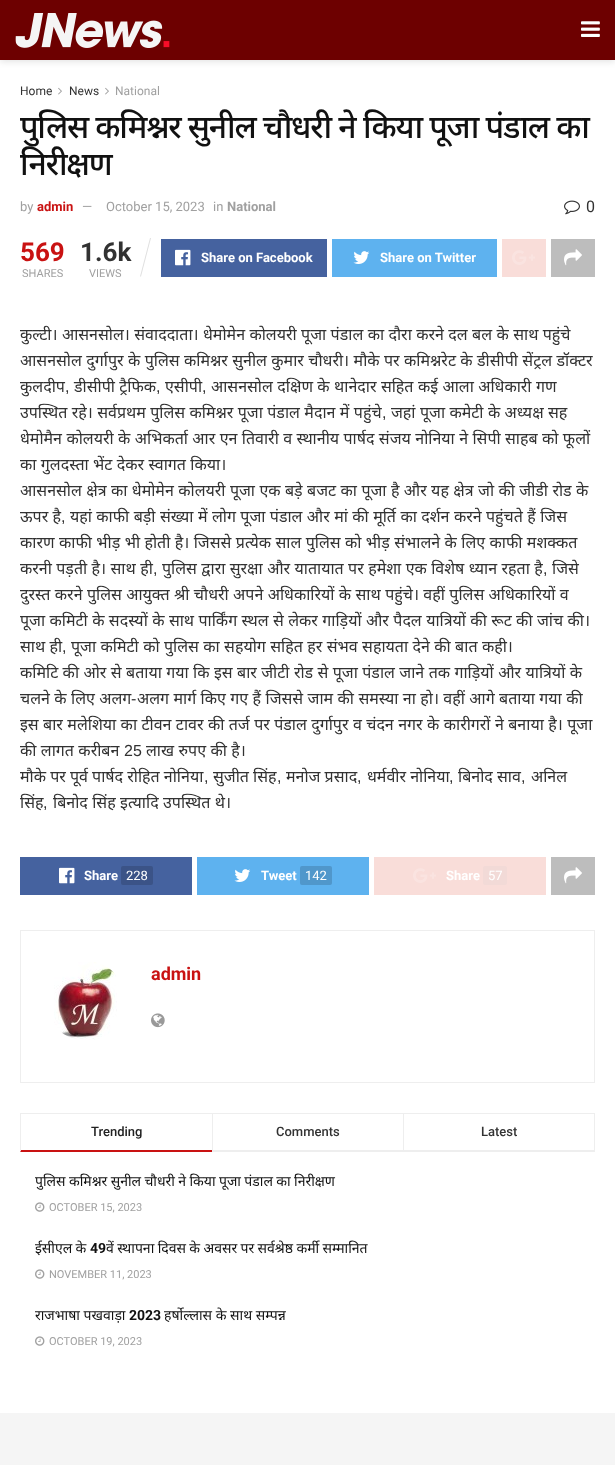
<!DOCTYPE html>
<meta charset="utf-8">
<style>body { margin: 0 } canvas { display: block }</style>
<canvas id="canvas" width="615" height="1465"></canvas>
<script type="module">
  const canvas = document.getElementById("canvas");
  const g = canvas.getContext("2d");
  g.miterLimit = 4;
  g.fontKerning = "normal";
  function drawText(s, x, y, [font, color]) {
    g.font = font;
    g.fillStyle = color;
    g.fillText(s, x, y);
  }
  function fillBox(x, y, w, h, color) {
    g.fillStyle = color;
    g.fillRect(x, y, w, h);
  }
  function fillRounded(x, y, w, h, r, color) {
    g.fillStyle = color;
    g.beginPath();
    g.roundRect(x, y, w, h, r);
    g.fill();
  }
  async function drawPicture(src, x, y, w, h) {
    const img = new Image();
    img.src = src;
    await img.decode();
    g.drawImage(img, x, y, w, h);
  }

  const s1 = ["12px Roboto", "#323232"];
  const s2 = ["12px Roboto", "#A0A0A0"];
  const s3 = ["500 32px Noto Sans", "#111111"];
  const s4 = ["13px Roboto", "#A0A0A0"];
  const s5 = ["bold 13px Roboto", "#C91212"];
  const s6 = ["bold 13px Roboto", "#A0A0A0"];
  const s7 = ["16px Roboto", "#323232"];
  const s8 = ["bold 26px Roboto", "#C91212"];
  const s9 = ["11px Roboto", "#A0A0A0"];
  const s10 = ["bold 26px Roboto", "#323232"];
  const s11 = ["bold 13px Roboto", "#FFFFFF"];
  const s12 = ["16px Noto Sans", "#323232"];
  const s13 = ["16px Liberation Sans", "#323232"];
  const s14 = ["13px Roboto", "#FFFFFF"];
  const s15 = ["bold 18px Roboto", "#C91212"];
  const s16 = ["500 13px Roboto", "#212121"];
  const s17 = ["500 13px Roboto", "#323232"];
  const s18 = ["14px Noto Sans", "#111111"];
  const s19 = ["bold 14px Roboto", "#111111"];

  fillBox(0, 0, 615, 1465, "#FFFFFF");
  g.fillStyle = "rgba(0, 0, 0, 0.1)";
  g.filter = "blur(3px)";
  g.beginPath();
  g.rect(0, 2, 615, 60);
  g.fill();
  g.filter = "none";
  fillBox(0, 0, 615, 60, "#6D0000");
  await drawPicture("pic1.png", 15, 13, 155, 35);
  await drawPicture("pic2.png", 581, 21, 19, 16);
  drawText("Home", 20, 95, s1);
  await drawPicture("pic3.png", 58, 87, 4, 8);
  drawText("News", 69, 95, s1);
  await drawPicture("pic3.png", 105, 87, 4, 8);
  drawText("National", 115, 95, s2);
  g.letterSpacing = "-1.3px";
  g.wordSpacing = "0.5px";
  drawText("पुलिस कमिश्नर सुनील चौधरी ने किया पूजा पंडाल का", 20, 138, s3);
  g.wordSpacing = "0px";
  drawText("निरीक्षण", 20, 175, s3);
  g.letterSpacing = "0px";
  drawText("by", 20, 211, s4);
  drawText("admin", 37, 211, s5);
  drawText("—", 82, 211, s4);
  drawText("October 15, 2023", 106, 211, s4);
  drawText("in", 213, 211, s4);
  drawText("National", 227, 211, s6);
  await drawPicture("pic4.png", 564, 200, 16, 15);
  drawText("0", 586, 212, s7);
  drawText("569", 20, 261, s8);
  drawText("SHARES", 22, 277, s9);
  drawText("1.6k", 80, 261, s10);
  g.fillStyle = "#E0E0E0";
  g.beginPath();
  g.moveTo(150, 238);
  g.lineTo(151, 238);
  g.lineTo(141, 276.5);
  g.lineTo(140, 276.5);
  g.closePath();
  g.fill();
  drawText("VIEWS", 89, 277, s9);
  fillBox(161, 239, 166, 38, "#45629F");
  await drawPicture("pic5.png", 175, 249, 16, 17);
  drawText("Share on Facebook", 201, 262, s11);
  fillBox(332, 239, 165, 38, "#5EB2EF");
  await drawPicture("pic6.png", 353, 251, 17, 13);
  drawText("Share on Twitter", 380, 262, s11);
  fillBox(502, 239, 44, 38, "#F9DDD9");
  await drawPicture("pic7.png", 512, 250, 23, 15);
  fillBox(551, 239, 44, 38, "#BDBDBD");
  await drawPicture("pic8.png", 564, 249, 18, 17);
  g.wordSpacing = "0.25px";
  drawText("कुल्टी। आसनसोल। संवाददाता। धेमोमेन कोलयरी पूजा पंडाल का दौरा करने दल बल के साथ पहुंचे", 20, 340, s12);
  drawText("आसनसोल दुर्गापुर के पुलिस कमिश्नर सुनील कुमार चौधरी। मौके पर कमिश्नरेट के डीसीपी सेंट्रल डॉक्टर", 20, 366, s12);
  g.wordSpacing = "0px";
  drawText("कुलदीप", 20, 392, s12);
  drawText(",", 65, 392, s13);
  g.wordSpacing = "0.25px";
  drawText("डीसीपी ट्रैफिक", 74, 392, s12);
  g.wordSpacing = "0px";
  drawText(",", 156, 392, s13);
  drawText("एसीपी", 165, 392, s12);
  drawText(",", 202, 392, s13);
  g.wordSpacing = "0.25px";
  drawText("आसनसोल दक्षिण के थानेदार सहित कई आला अधिकारी गण", 211, 392, s12);
  drawText("उपस्थित रहे। सर्वप्रथम पुलिस कमिश्नर पूजा पंडाल मैदान में पहुंचे", 20, 418, s12);
  g.wordSpacing = "0px";
  drawText(",", 382, 418, s13);
  g.wordSpacing = "0.25px";
  drawText("जहां पूजा कमेटी के अध्यक्ष सह", 391, 418, s12);
  drawText("धेमोमैन कोलयरी के अभिकर्ता आर एन तिवारी व स्थानीय पार्षद संजय नोनिया ने सिपी साहब को फूलों", 20, 444, s12);
  drawText("का गुलदस्ता भेंट देकर स्वागत किया।", 20, 470, s12);
  drawText("आसनसोल क्षेत्र का धेमोमेन कोलयरी पूजा एक बड़े बजट का पूजा है और यह क्षेत्र जो की जीडी रोड के", 20, 496, s12);
  drawText("ऊपर है", 20, 522, s12);
  g.wordSpacing = "0px";
  drawText(",", 61, 522, s13);
  g.wordSpacing = "0.25px";
  drawText("यहां काफी बड़ी संख्या में लोग पूजा पंडाल और मां की मूर्ति का दर्शन करने पहुंचते हैं जिस", 70, 522, s12);
  drawText("कारण काफी भीड़ भी होती है। जिससे प्रत्येक साल पुलिस को भीड़ संभालने के लिए काफी मशक्कत", 20, 548, s12);
  drawText("करनी पड़ती है। साथ ही", 20, 574, s12);
  g.wordSpacing = "0px";
  drawText(",", 153, 574, s13);
  g.wordSpacing = "0.25px";
  drawText("पुलिस द्वारा सुरक्षा और यातायात पर हमेशा एक विशेष ध्यान रहता है", 162, 574, s12);
  g.wordSpacing = "0px";
  drawText("जिसे", 552, 574, s12);
  drawText(",", 543, 574, s13);
  g.wordSpacing = "0.25px";
  drawText("दुरस्त करने पुलिस आयुक्त श्री चौधरी अपने अधिकारियों के साथ पहुंचे। वहीं पुलिस अधिकारियों व", 20, 600, s12);
  drawText("पूजा कमिटी के सदस्यों के साथ पार्किंग स्थल से लेकर गाड़ियों और पैदल यात्रियों की रूट की जांच की।", 20, 626, s12);
  drawText("साथ ही", 20, 652, s12);
  g.wordSpacing = "0px";
  drawText(",", 62, 652, s13);
  g.wordSpacing = "0.25px";
  drawText("पूजा कमिटी को पुलिस का सहयोग सहित हर संभव सहायता देने की बात कही।", 71, 652, s12);
  drawText("कमिटि की ओर से बताया गया कि इस बार जीटी रोड से पूजा पंडाल जाने तक गाड़ियों और यात्रियों के", 20, 678, s12);
  drawText("चलने के लिए अलग", 20, 704, s12);
  g.wordSpacing = "0px";
  drawText("-", 131, 704, s13);
  g.wordSpacing = "0.25px";
  drawText("अलग मार्ग किए गए हैं जिससे जाम की समस्या ना हो। वहीं आगे बताया गया की", 137, 704, s12);
  drawText("इस बार मलेशिया का टीवन टावर की तर्ज पर पंडाल दुर्गापुर व चंदन नगर के कारीगरों ने बनाया है। पूजा", 20, 730, s12);
  drawText("की लागत करीबन", 20, 756, s12);
  g.wordSpacing = "0px";
  drawText("25", 124, 756, s13);
  g.wordSpacing = "0.25px";
  drawText("लाख रुपए की है।", 146, 756, s12);
  g.wordSpacing = "0px";
  drawText("मौके पर पूर्व पार्षद रोहित नोनिया", 20, 782, s12);
  drawText(",", 204, 782, s13);
  drawText("सुजीत सिंह", 213, 782, s12);
  drawText("मनोज प्रसाद", 286, 782, s12);
  drawText("धर्मवीर नोनिया", 367, 782, s12);
  drawText("बिनोद साव", 458, 782, s12);
  drawText("अनिल", 531, 782, s12);
  drawText(",", 277, 782, s13);
  drawText(",", 357, 782, s13);
  drawText(",", 449, 782, s13);
  drawText(",", 521, 782, s13);
  drawText("सिंह", 20, 808, s12);
  drawText(",", 43, 808, s13);
  g.wordSpacing = "0.25px";
  drawText("बिनोद सिंह इत्यादि उपस्थित थे।", 53, 808, s12);
  fillBox(20, 857, 172, 38, "#45629F");
  await drawPicture("pic5.png", 59, 867, 16, 17);
  g.wordSpacing = "0px";
  drawText("Share", 84, 880, s11);
  fillRounded(121, 866, 32, 19, 2, "#3B5387");
  drawText("228", 126, 880, s14);
  fillBox(197, 857, 172, 38, "#5EB2EF");
  await drawPicture("pic6.png", 234, 869, 17, 13);
  drawText("Tweet", 261, 880, s11);
  fillRounded(300, 866, 32, 19, 2, "#5097CB");
  drawText("142", 305, 880, s14);
  fillBox(374, 857, 172, 38, "#F9DDD9");
  await drawPicture("pic7.png", 413, 868, 23, 15);
  drawText("Share", 446, 880, s11);
  fillRounded(483, 866, 24, 19, 2, "#F2DAD7");
  drawText("57", 488, 880, s14);
  fillBox(551, 857, 44, 38, "#BDBDBD");
  await drawPicture("pic8.png", 564, 867, 18, 17);
  g.strokeStyle = "#EEEEEE";
  g.strokeRect(20.5, 930.5, 574, 152);
  await drawPicture("pic9.png", 54, 962, 63, 78);
  drawText("admin", 151, 980, s15);
  await drawPicture("pic10.png", 151, 1013, 14, 15);
  fillBox(20, 1113, 575, 1, "#EEEEEE");
  g.fillStyle = "#C91212";
  g.beginPath();
  g.moveTo(212, 1152);
  g.lineTo(20, 1152);
  g.lineTo(21, 1150);
  g.lineTo(212, 1150);
  g.closePath();
  g.fill();
  g.fillStyle = "#EEEEEE";
  g.beginPath();
  g.moveTo(20, 1152);
  g.lineTo(20, 1113);
  g.lineTo(21, 1114);
  g.lineTo(21, 1150);
  g.closePath();
  g.fill();
  drawText("Trending", 91, 1136, s16);
  fillBox(212, 1150, 191, 2, "#EEEEEE");
  fillBox(212, 1113, 1, 39, "#EEEEEE");
  drawText("Comments", 276, 1136, s17);
  fillBox(594, 1113, 1, 39, "#EEEEEE");
  fillBox(403, 1150, 192, 2, "#EEEEEE");
  fillBox(403, 1113, 1, 39, "#EEEEEE");
  drawText("Latest", 481, 1136, s17);
  g.wordSpacing = "-0.25px";
  drawText("पुलिस कमिश्नर सुनील चौधरी ने किया पूजा पंडाल का निरीक्षण", 35, 1186, s18);
  await drawPicture("pic11.png", 35, 1202, 10, 10);
  g.wordSpacing = "0px";
  drawText("OCTOBER 15, 2023", 49, 1211, s9);
  g.wordSpacing = "-0.25px";
  drawText("ईसीएल के", 35, 1253, s18);
  g.wordSpacing = "0px";
  drawText("49", 90, 1253, s19);
  g.wordSpacing = "-0.25px";
  drawText("वें स्थापना दिवस के अवसर पर सर्वश्रेष्ठ कर्मी सम्मानित", 106, 1253, s18);
  await drawPicture("pic11.png", 35, 1269, 10, 10);
  g.wordSpacing = "0px";
  drawText("NOVEMBER 11, 2023", 49, 1278, s9);
  drawText("राजभाषा पखवाड़ा", 35, 1320, s18);
  drawText("2023", 129, 1320, s19);
  drawText("हर्षोल्लास के साथ सम्पन्न", 164, 1320, s18);
  await drawPicture("pic11.png", 35, 1336, 10, 10);
  drawText("OCTOBER 19, 2023", 49, 1345, s9);
  fillBox(0, 1413, 615, 52, "#F5F5F5");
</script>
